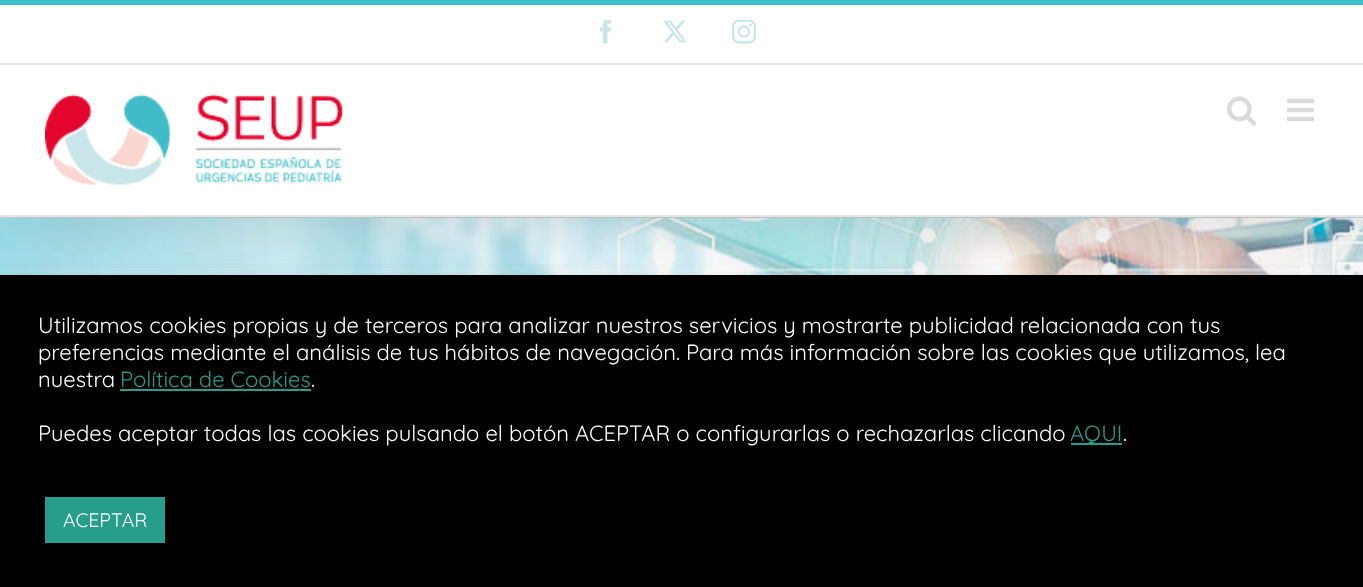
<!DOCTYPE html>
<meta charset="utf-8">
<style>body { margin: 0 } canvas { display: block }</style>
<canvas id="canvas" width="1363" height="587"></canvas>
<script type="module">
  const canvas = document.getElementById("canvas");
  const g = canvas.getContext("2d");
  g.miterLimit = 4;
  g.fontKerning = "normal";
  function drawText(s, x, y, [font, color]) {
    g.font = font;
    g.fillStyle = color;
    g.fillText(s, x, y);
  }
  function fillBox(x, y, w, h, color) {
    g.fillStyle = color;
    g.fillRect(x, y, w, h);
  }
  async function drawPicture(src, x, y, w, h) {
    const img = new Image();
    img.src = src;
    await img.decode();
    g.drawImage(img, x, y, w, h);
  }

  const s1 = ["22px Quicksand", "#FFFFFF"];
  const s2 = ["22px Quicksand", "#279E8C"];
  const s3 = ["19.5px Quicksand", "#FFFFFF"];

  fillBox(0, 0, 1363, 587, "#FFFFFF");
  await drawPicture("pic7.png", 0, 218, 1363, 57);
  fillBox(0, 217, 1363, 1, "#D2D3D4");
  g.fillStyle = "rgba(172, 171, 171, 0.3)";
  g.filter = "blur(7.5px)";
  g.beginPath();
  g.rect(0, 273, 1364, 314);
  g.fill();
  g.filter = "none";
  fillBox(0, 275, 1363, 312, "#000000");
  g.save();
  g.beginPath();
  g.rect(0, 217, 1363, 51);
  g.clip();
  g.fillStyle = "rgba(0, 0, 0, 0.14)";
  g.filter = "blur(37.5px)";
  g.beginPath();
  g.rect(3, 18, 1358, 210);
  g.fill();
  g.filter = "none";
  g.restore();
  fillBox(0, 0, 1363, 5, "#3DBCC9");
  fillBox(0, 63, 1363, 2, "#E5E5E5");
  await drawPicture("pic1.png", 600, 20, 12, 24);
  await drawPicture("pic2.png", 663, 20, 24, 23);
  await drawPicture("pic3.png", 732, 20, 24, 24);
  fillBox(0, 215, 1363, 2, "#E5E5E5");
  await drawPicture("pic4.png", 45, 94, 299, 91);
  await drawPicture("pic5.png", 1227, 96, 30, 30);
  await drawPicture("pic6.png", 1287, 98, 27, 24);
  drawText("Utilizamos cookies propias y de terceros para analizar nuestros servicios y mostrarte publicidad relacionada con tus", 38, 333, s1);
  drawText("preferencias mediante el análisis de tus hábitos de navegación. Para más información sobre las cookies que utilizamos, lea", 38, 360, s1);
  drawText("nuestra", 38, 387, s1);
  drawText("Política de Cookies", 120, 387, s2);
  fillBox(120, 389, 191, 2, "#279E8C");
  drawText(".", 311, 387, s1);
  drawText("Puedes aceptar todas las cookies pulsando el botón ACEPTAR o configurarlas o rechazarlas clicando", 38, 441, s1);
  fillBox(1071, 443, 51, 2, "#279E8C");
  drawText("AQUI", 1070, 441, s2);
  drawText(".", 1123, 441, s1);
  fillBox(45, 497, 120, 46, "#279E8C");
  drawText("ACEPTAR", 63, 527, s3);
</script>
